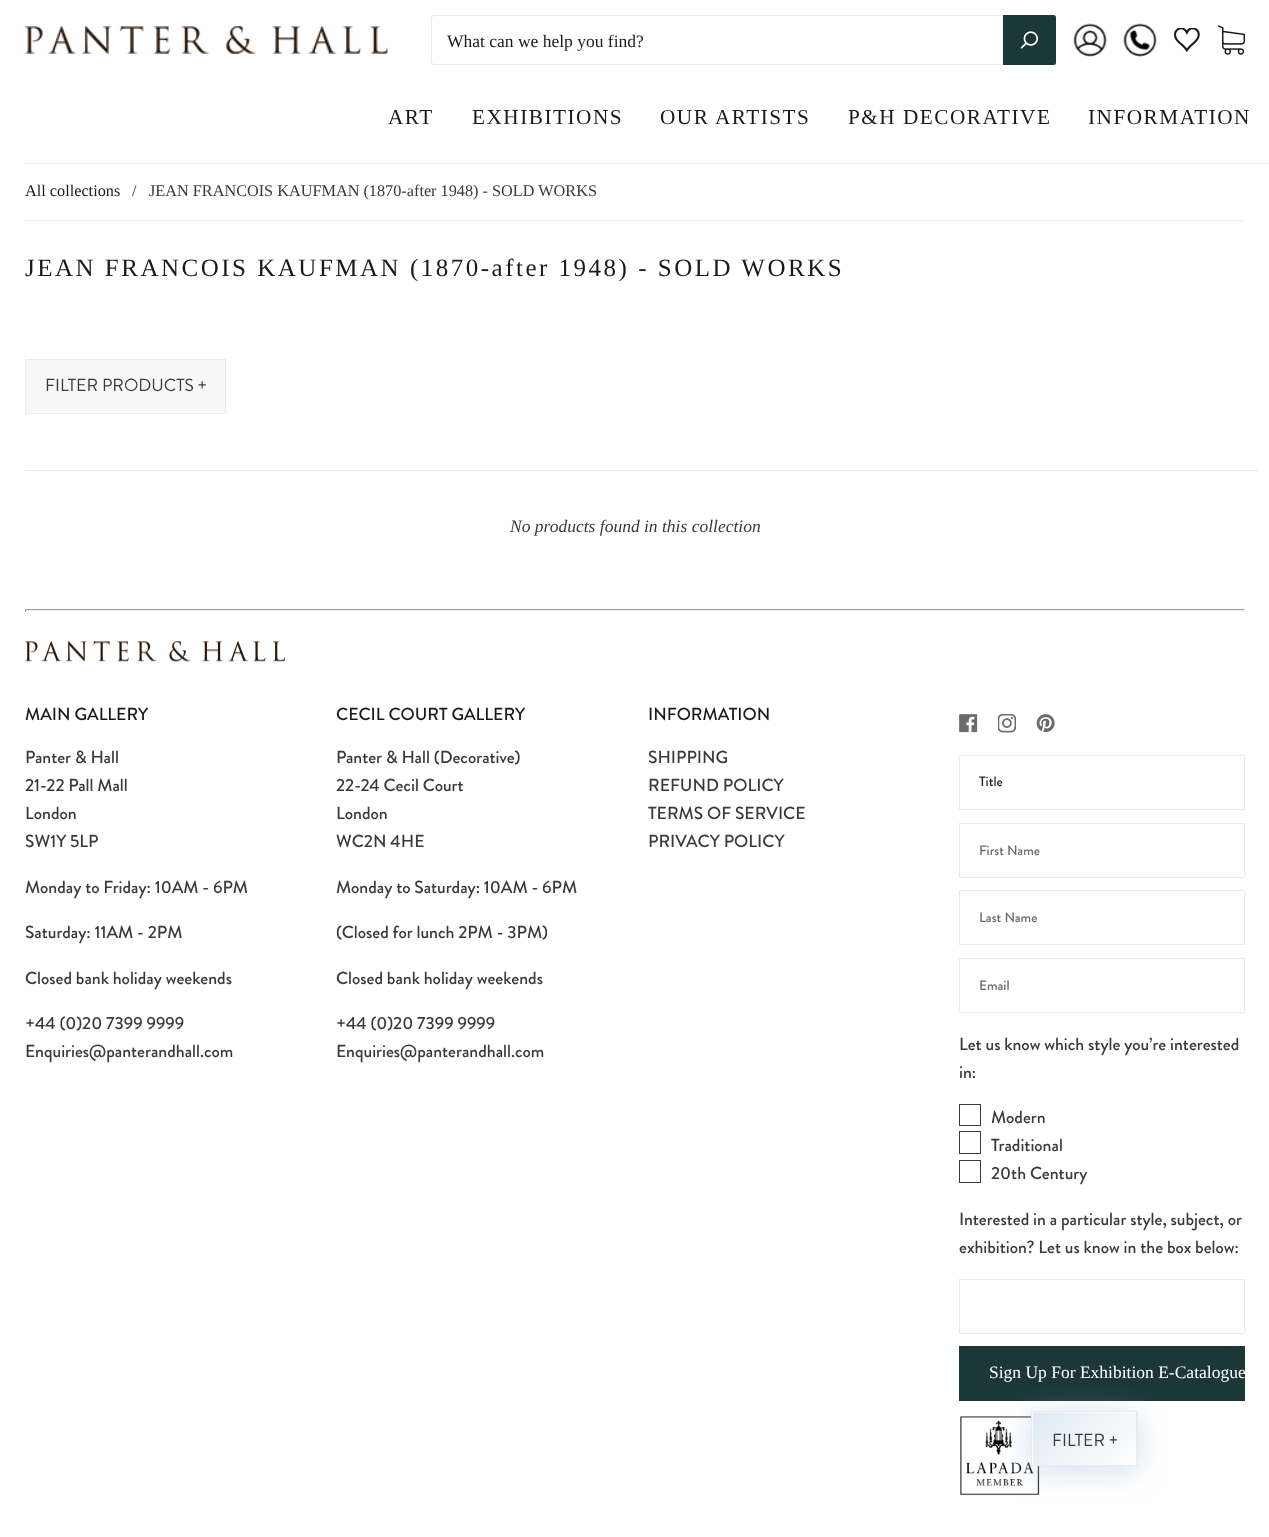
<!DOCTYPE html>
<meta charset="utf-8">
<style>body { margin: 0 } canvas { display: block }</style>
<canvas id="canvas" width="1269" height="1537"></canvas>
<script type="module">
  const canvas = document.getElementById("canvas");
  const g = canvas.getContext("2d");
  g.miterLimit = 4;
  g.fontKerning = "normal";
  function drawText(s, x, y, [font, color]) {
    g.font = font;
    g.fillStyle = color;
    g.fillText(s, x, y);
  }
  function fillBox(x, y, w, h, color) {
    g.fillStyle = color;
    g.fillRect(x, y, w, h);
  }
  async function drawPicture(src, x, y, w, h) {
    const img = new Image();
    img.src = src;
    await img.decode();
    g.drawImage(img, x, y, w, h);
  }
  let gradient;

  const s1 = ["17.5px Liberation Serif", "#1A1A1A"];
  const s2 = ["21.25px Liberation Serif", "#1A1A1A"];
  const s3 = ["16.25px Liberation Serif", "#1A1A1A"];
  const s4 = ["16.25px Liberation Serif", "#3A3A3A"];
  const s5 = ["25px Liberation Serif", "#1A1A1A"];
  const s6 = ["17.5px Brandon Grotesque", "#3A3A3A"];
  const s7 = ["italic 17.5px Liberation Serif", "#3A3A3A"];
  const s8 = ["500 17.5px Brandon Grotesque", "#1A1A1A"];
  const s9 = ["500 17.5px Brandon Grotesque", "#3A3A3A"];
  const s10 = ["500 13.75px Brandon Grotesque", "#231F20"];
  const s11 = ["500 13.75px Brandon Grotesque", "#6B6B6B"];
  const s12 = ["17.5px Liberation Serif", "#FFFFFF"];

  fillBox(0, 0, 1269, 1537, "#FFFFFF");
  await drawPicture("pic1.png", 25, 26, 363, 28);
  g.fillStyle = "#EBEBEB";
  g.beginPath();
  g.moveTo(434, 15);
  g.bezierCurveTo(432, 15, 431, 16, 431, 18);
  g.lineTo(431, 62);
  g.bezierCurveTo(431, 64, 432, 65, 434, 65);
  g.lineTo(1054, 65);
  g.bezierCurveTo(1055, 65, 1056, 64, 1056, 62);
  g.lineTo(1056, 18);
  g.bezierCurveTo(1056, 16, 1055, 15, 1054, 15);
  g.closePath();
  g.moveTo(434, 16);
  g.bezierCurveTo(433, 16, 432, 17, 432, 18);
  g.lineTo(432, 62);
  g.bezierCurveTo(432, 63, 433, 64, 434, 64);
  g.lineTo(1055, 64);
  g.lineTo(1055, 16);
  g.closePath();
  g.fill("evenodd");
  drawText("What can we help you find?", 447, 47, s1);
  g.fillStyle = "#1C3738";
  g.beginPath();
  g.roundRect(1003, 15, 53, 50, [0, 2.5, 2.5, 0]);
  g.fill();
  await drawPicture("pic2.png", 1020, 31, 18, 18);
  await drawPicture("pic3.png", 1073, 23, 34, 34);
  await drawPicture("pic4.png", 1123, 23, 34, 34);
  await drawPicture("pic5.png", 1174, 28, 26, 24);
  await drawPicture("pic6.png", 1218, 25, 27, 30);
  fillBox(25, 163, 1244, 1, "#EBEBEB");
  g.letterSpacing = "1.5px";
  drawText("ART", 388, 124, s2);
  drawText("EXHIBITIONS", 472, 124, s2);
  drawText("OUR ARTISTS", 660, 124, s2);
  drawText("P&H DECORATIVE", 848, 124, s2);
  drawText("INFORMATION", 1088, 124, s2);
  fillBox(25, 220, 1220, 1, "#EBEBEB");
  g.letterSpacing = "0px";
  drawText("All collections", 25, 196, s3);
  drawText("/", 132, 196, s4);
  drawText("JEAN FRANCOIS KAUFMAN (1870-after 1948) - SOLD WORKS", 149, 196, s4);
  g.letterSpacing = "2.5px";
  drawText("JEAN FRANCOIS KAUFMAN (1870-after 1948) - SOLD WORKS", 25, 276, s5);
  fillBox(25, 470, 1233, 1, "#EBEBEB");
  g.fillStyle = "#F7F7F7";
  g.beginPath();
  g.rect(25.5, 359.5, 200, 54);
  g.fill();
  g.strokeStyle = "#EBEBEB";
  g.stroke();
  g.letterSpacing = "0px";
  drawText("FILTER PRODUCTS +", 45, 391, s6);
  drawText("No products found in this collection", 510, 532, s7);
  fillBox(959, 1346, 286, 55, "#1C3738");
  await drawPicture("pic11.png", 960, 1416, 80, 80);
  g.fillStyle = "rgba(159, 190, 221, 0.5)";
  g.filter = "blur(15px)";
  g.beginPath();
  g.rect(1031, 1416, 107, 55);
  g.fill();
  g.filter = "none";
  gradient = g.createLinearGradient(942, 1347, 1020, 1425);
  gradient.addColorStop(0, "#DFE9F3");
  gradient.addColorStop(1, "#FFFFFF");
  g.fillStyle = gradient;
  g.fillRect(1031, 1412, 2, 1);
  gradient = g.createLinearGradient(1045, 1347, 1123, 1425);
  gradient.addColorStop(0, "#DFE9F3");
  gradient.addColorStop(1, "#FFFFFF");
  g.fillStyle = gradient;
  g.fillRect(1033, 1412, 103, 1);
  gradient = g.createLinearGradient(1149, 1347, 1227, 1425);
  gradient.addColorStop(0, "#DFE9F3");
  gradient.addColorStop(1, "#FFFFFF");
  g.fillStyle = gradient;
  g.fillRect(1136, 1412, 2, 1);
  gradient = g.createLinearGradient(942, 1400, 1020, 1478);
  gradient.addColorStop(0, "#DFE9F3");
  gradient.addColorStop(1, "#FFFFFF");
  g.fillStyle = gradient;
  g.fillRect(1032, 1413, 1, 52);
  gradient = g.createLinearGradient(1045, 1400, 1123, 1478);
  gradient.addColorStop(0, "#DFE9F3");
  gradient.addColorStop(1, "#FFFFFF");
  g.fillStyle = gradient;
  g.fillRect(1033, 1413, 103, 52);
  gradient = g.createLinearGradient(1149, 1400, 1227, 1478);
  gradient.addColorStop(0, "#DFE9F3");
  gradient.addColorStop(1, "#FFFFFF");
  g.fillStyle = gradient;
  g.fillRect(1136, 1413, 1, 52);
  g.strokeRect(1031.5, 1411.5, 106, 54);
  drawText("FILTER +", 1052, 1446, s6);
  fillBox(25, 609, 1220, 1, "#9F9F9F");
  fillBox(1244, 609, 1, 3, "#EEEEEE");
  fillBox(25, 610, 1220, 1, "#EEEEEE");
  fillBox(25, 609, 1, 3, "#9F9F9F");
  await drawPicture("pic7.png", 25, 641, 260, 21);
  drawText("MAIN GALLERY", 25, 720, s8);
  drawText("Panter & Hall", 25, 763, s9);
  drawText("21-22 Pall Mall", 25, 791, s9);
  drawText("London", 25, 819, s9);
  drawText("SW1Y 5LP", 25, 847, s9);
  drawText("Monday to Friday: 10AM - 6PM", 25, 893, s9);
  drawText("Saturday: 11AM - 2PM", 25, 938, s9);
  drawText("Closed bank holiday weekends", 25, 984, s9);
  drawText("+44 (0)20 7399 9999", 25, 1029, s9);
  drawText("Enquiries@panterandhall.com", 25, 1057, s9);
  drawText("CECIL COURT GALLERY", 336, 720, s8);
  drawText("Panter & Hall (Decorative)", 336, 763, s9);
  drawText("22-24 Cecil Court", 336, 791, s9);
  drawText("London", 336, 819, s9);
  drawText("WC2N 4HE", 336, 847, s9);
  drawText("Monday to Saturday: 10AM - 6PM", 336, 893, s9);
  drawText("(Closed for lunch 2PM - 3PM)", 336, 938, s9);
  drawText("Closed bank holiday weekends", 336, 984, s9);
  drawText("+44 (0)20 7399 9999", 336, 1029, s9);
  drawText("Enquiries@panterandhall.com", 336, 1057, s9);
  drawText("INFORMATION", 648, 720, s8);
  drawText("SHIPPING", 648, 763, s9);
  drawText("REFUND POLICY", 648, 791, s9);
  drawText("TERMS OF SERVICE", 648, 819, s9);
  drawText("PRIVACY POLICY", 648, 847, s9);
  await drawPicture("pic8.png", 959, 714, 19, 19);
  await drawPicture("pic9.png", 998, 714, 18, 19);
  await drawPicture("pic10.png", 1036, 714, 19, 19);
  g.strokeRect(959.5, 755.5, 285, 54);
  drawText("Title", 979, 786, s10);
  g.strokeRect(959.5, 823.5, 285, 54);
  drawText("First Name", 979, 855, s11);
  g.strokeRect(959.5, 890.5, 285, 54);
  drawText("Last Name", 979, 922, s11);
  g.strokeRect(959.5, 958.5, 285, 54);
  drawText("Email", 979, 990, s11);
  drawText("Let us know which style you’re interested", 959, 1050, s9);
  drawText("in:", 959, 1078, s9);
  g.strokeStyle = "#3A3A3A";
  g.strokeRect(959.5, 1104.5, 21, 21);
  drawText("Modern", 991, 1123, s9);
  g.strokeRect(959.5, 1131.5, 21, 22);
  drawText("Traditional", 991, 1151, s9);
  g.strokeRect(959.5, 1160.5, 21, 22);
  drawText("20th Century", 991, 1179, s9);
  drawText("Interested in a particular style, subject, or", 959, 1225, s9);
  drawText("exhibition? Let us know in the box below:", 959, 1253, s9);
  g.strokeStyle = "#EBEBEB";
  g.strokeRect(959.5, 1279.5, 285, 54);
  drawText("Sign Up For Exhibition E-Catalogue", 989, 1378, s12);
</script>
